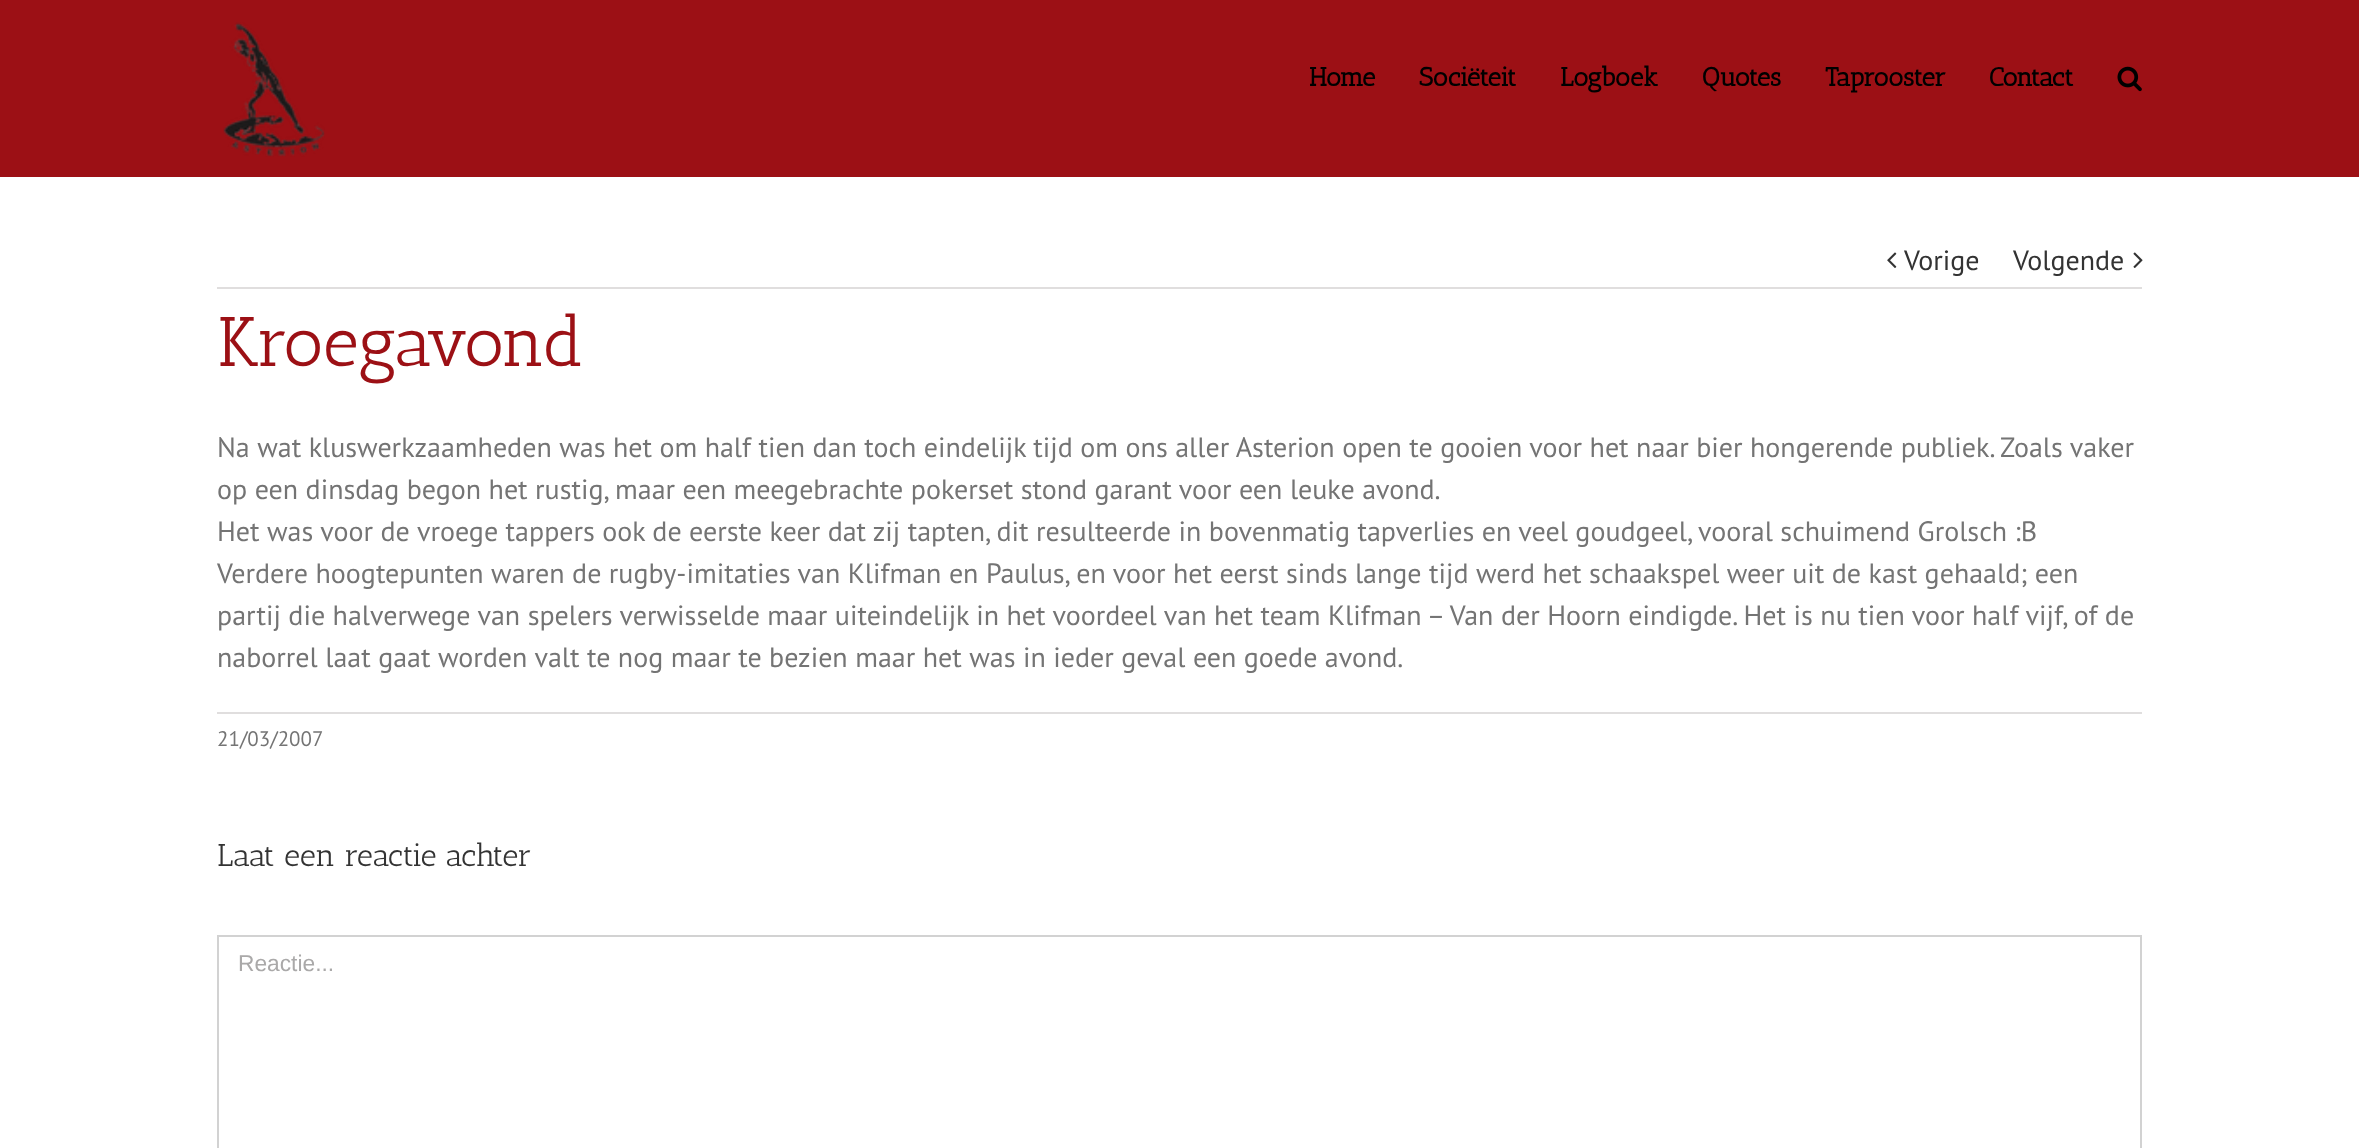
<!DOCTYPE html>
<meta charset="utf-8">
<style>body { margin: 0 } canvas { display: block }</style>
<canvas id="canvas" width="2359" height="1148"></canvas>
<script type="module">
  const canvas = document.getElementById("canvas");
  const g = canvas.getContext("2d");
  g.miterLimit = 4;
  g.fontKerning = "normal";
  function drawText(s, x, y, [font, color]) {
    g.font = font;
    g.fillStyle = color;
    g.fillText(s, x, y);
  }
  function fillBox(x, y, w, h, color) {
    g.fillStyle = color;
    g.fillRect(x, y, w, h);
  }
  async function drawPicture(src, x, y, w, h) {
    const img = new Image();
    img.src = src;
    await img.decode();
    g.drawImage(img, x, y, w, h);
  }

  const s1 = ["bold 26.25px Antic Slab", "#000000"];
  const s2 = ["28px PT Sans", "#333333"];
  const s3 = ["70px Antic Slab", "#9C1015"];
  const s4 = ["28px PT Sans", "#747474"];
  const s5 = ["21px PT Sans", "#747474"];
  const s6 = ["31.5px Antic Slab", "#333333"];
  const s7 = ["22.75px Liberation Sans", "#AAA9A9"];

  fillBox(0, 0, 2359, 1148, "#FFFFFF");
  fillBox(0, 0, 2359, 177, "#9C1015");
  await drawPicture("pic1.png", 223, 22, 102, 135);
  drawText("Home", 1309, 86, s1);
  drawText("Sociëteit", 1419, 86, s1);
  drawText("Logboek", 1560, 86, s1);
  drawText("Quotes", 1702, 86, s1);
  drawText("Taprooster", 1825, 86, s1);
  drawText("Contact", 1989, 86, s1);
  await drawPicture("pic2.png", 2117, 66, 25, 26);
  fillBox(217, 287, 1925, 2, "#E0DEDE");
  await drawPicture("pic3.png", 1887, 252, 10, 16);
  drawText("Vorige", 1904, 270, s2);
  drawText("Volgende", 2013, 270, s2);
  await drawPicture("pic4.png", 2133, 252, 10, 16);
  drawText("Kroegavond", 217, 366, s3);
  drawText("Na wat kluswerkzaamheden was het om half tien dan toch eindelijk tijd om ons aller Asterion open te gooien voor het naar bier hongerende publiek. Zoals vaker", 217, 457, s4);
  drawText("op een dinsdag begon het rustig, maar een meegebrachte pokerset stond garant voor een leuke avond.", 217, 499, s4);
  drawText("Het was voor de vroege tappers ook de eerste keer dat zij tapten, dit resulteerde in bovenmatig tapverlies en veel goudgeel, vooral schuimend Grolsch :B", 217, 541, s4);
  drawText("Verdere hoogtepunten waren de rugby-imitaties van Klifman en Paulus, en voor het eerst sinds lange tijd werd het schaakspel weer uit de kast gehaald; een", 217, 583, s4);
  drawText("partij die halverwege van spelers verwisselde maar uiteindelijk in het voordeel van het team Klifman – Van der Hoorn eindigde. Het is nu tien voor half vijf, of de", 217, 625, s4);
  drawText("naborrel laat gaat worden valt te nog maar te bezien maar het was in ieder geval een goede avond.", 217, 667, s4);
  fillBox(217, 712, 1925, 2, "#E0DEDE");
  drawText("21/03/2007", 217, 746, s5);
  drawText("Laat een reactie achter", 217, 866, s6);
  g.strokeStyle = "#D2D2D2";
  g.lineWidth = 2;
  g.strokeRect(218, 936, 1923, 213);
  drawText("Reactie...", 238, 971, s7);
</script>
